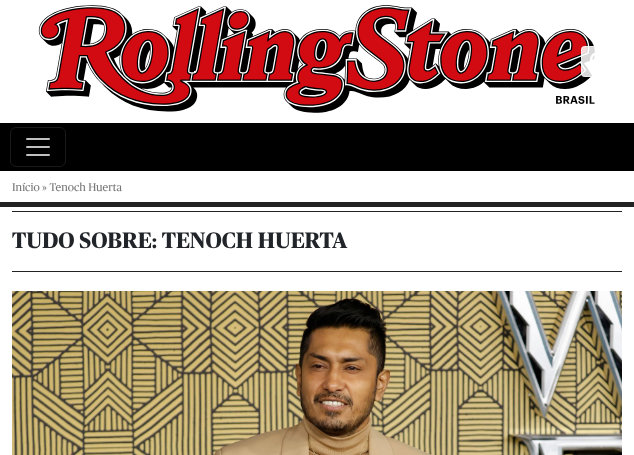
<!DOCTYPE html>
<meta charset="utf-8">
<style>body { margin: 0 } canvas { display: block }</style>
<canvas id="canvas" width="634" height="455"></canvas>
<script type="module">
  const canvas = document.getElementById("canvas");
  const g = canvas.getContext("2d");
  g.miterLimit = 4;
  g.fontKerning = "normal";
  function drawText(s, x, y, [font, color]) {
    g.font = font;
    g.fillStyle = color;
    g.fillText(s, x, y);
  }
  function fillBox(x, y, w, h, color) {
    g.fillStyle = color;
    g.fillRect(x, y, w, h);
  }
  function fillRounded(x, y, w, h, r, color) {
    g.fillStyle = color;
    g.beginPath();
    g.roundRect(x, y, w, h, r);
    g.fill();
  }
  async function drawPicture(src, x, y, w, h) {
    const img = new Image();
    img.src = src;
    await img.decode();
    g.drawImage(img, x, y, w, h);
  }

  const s1 = ["11.25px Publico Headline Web", "#777777"];
  const s2 = ["bold 22.4px Publico Headline Web", "#212529"];

  fillBox(0, 0, 634, 455, "#FFFFFF");
  await drawPicture("pic1.png", 38, 5, 557, 108);
  fillRounded(581, 46, 38, 31, 4, "rgba(255, 255, 255, 0.85)");
  g.beginPath();
  g.roundRect(581.5, 46.5, 37, 30, 3.5);
  g.strokeStyle = "rgba(255, 255, 255, 0.4)";
  g.stroke();
  await drawPicture("pic2.png", 590, 52, 5, 9);
  fillBox(0, 123, 634, 48, "#000000");
  g.beginPath();
  g.roundRect(10.5, 127.5, 55, 39, 5.5);
  g.strokeStyle = "#1A1A1A";
  g.stroke();
  await drawPicture("pic3.png", 26, 138, 24, 18);
  drawText("Início » Tenoch Huerta", 12, 191, s1);
  fillBox(0, 202, 634, 5, "#222222");
  fillBox(12, 211, 610, 1, "#222222");
  fillBox(12, 271, 610, 1, "#222222");
  drawText("TUDO SOBRE: TENOCH HUERTA", 12, 248, s2);
  await drawPicture("pic4.png", 12, 291, 610, 164);
</script>
